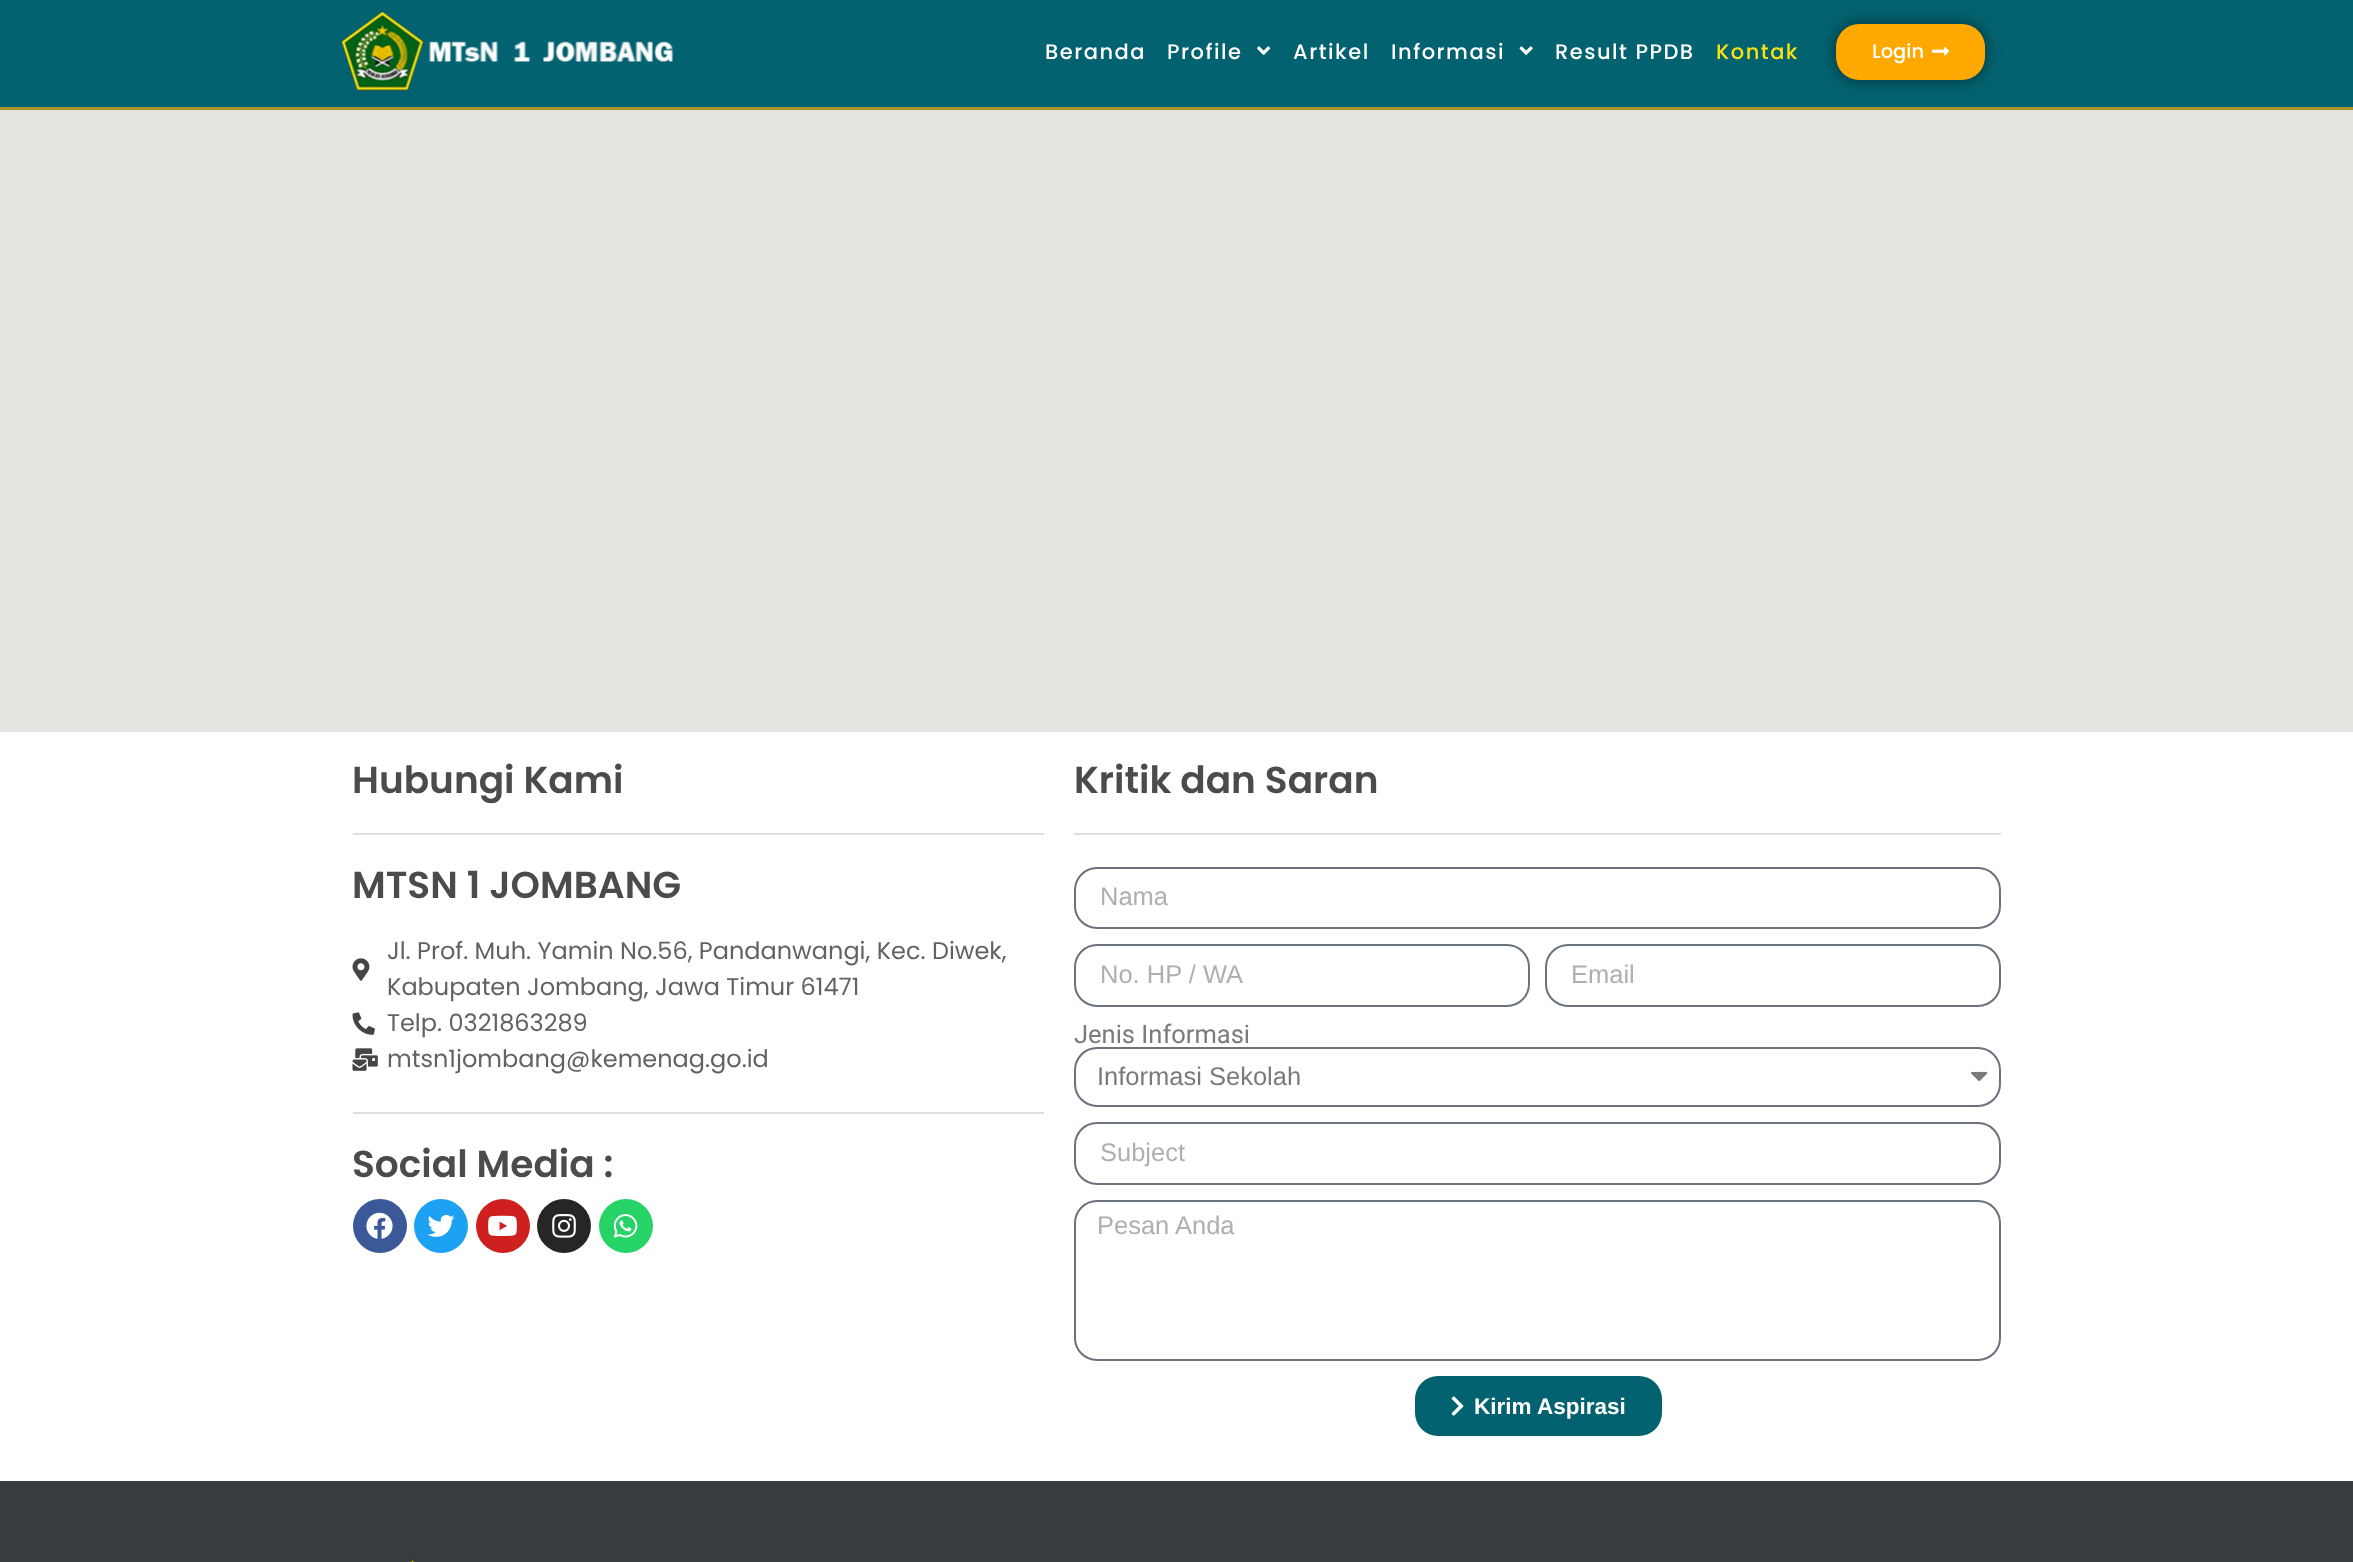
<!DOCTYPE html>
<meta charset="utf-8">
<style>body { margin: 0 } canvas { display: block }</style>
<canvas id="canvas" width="2353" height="1562"></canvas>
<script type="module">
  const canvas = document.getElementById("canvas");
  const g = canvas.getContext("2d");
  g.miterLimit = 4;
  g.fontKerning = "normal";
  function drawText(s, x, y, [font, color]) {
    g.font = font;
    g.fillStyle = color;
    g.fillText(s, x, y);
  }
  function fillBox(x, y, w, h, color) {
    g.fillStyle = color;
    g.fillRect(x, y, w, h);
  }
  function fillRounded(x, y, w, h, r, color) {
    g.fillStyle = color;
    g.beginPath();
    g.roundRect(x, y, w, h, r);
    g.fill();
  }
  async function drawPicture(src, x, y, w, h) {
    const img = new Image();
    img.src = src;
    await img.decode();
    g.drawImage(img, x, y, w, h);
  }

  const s1 = ["500 21px Poppins", "#FFFFFF"];
  const s2 = ["500 21px Poppins", "#F8E114"];
  const s3 = ["500 19.5px Poppins", "#FFFFFF"];
  const s4 = ["600 37.5px Poppins", "#4B4B4B"];
  const s5 = ["24px Poppins", "#626262"];
  const s6 = ["25.5px Liberation Sans", "#AFAFAF"];
  const s7 = ["25.5px Roboto", "#7A7A7A"];
  const s8 = ["25.5px Liberation Sans", "#7A7A7A"];
  const s9 = ["bold 22.5px Liberation Sans", "#FFFFFF"];

  fillBox(0, 0, 2353, 1562, "#FFFFFF");
  fillBox(0, 0, 2353, 107, "#03626F");
  fillBox(0, 107, 2353, 3, "#A79527");
  await drawPicture("pic1.png", 340, 10, 333, 82);
  g.letterSpacing = "1.5px";
  drawText("Beranda", 1045, 59, s1);
  drawText("Profile", 1167, 59, s1);
  await drawPicture("pic2.png", 1257, 46, 14, 9);
  drawText("Artikel", 1293, 59, s1);
  drawText("Informasi", 1391, 59, s1);
  await drawPicture("pic3.png", 1519, 46, 14, 9);
  drawText("Result PPDB", 1555, 59, s1);
  drawText("Kontak", 1716, 59, s2);
  g.fillStyle = "rgba(0, 0, 0, 0.5)";
  g.filter = "blur(7.5px)";
  g.beginPath();
  g.roundRect(1836, 24, 149, 56, 23);
  g.fill();
  g.filter = "none";
  fillRounded(1836, 24, 149, 56, 23, "#FFA800");
  g.letterSpacing = "0px";
  drawText("Login", 1872, 58, s3);
  await drawPicture("pic4.png", 1932, 47, 17, 9);
  fillBox(0, 110, 2353, 622, "#E5E3DF");
  drawText("Hubungi Kami", 352, 793, s4);
  fillBox(353, 833, 691, 2, "#DEDEDE");
  drawText("MTSN 1 JOMBANG", 352, 898, s4);
  await drawPicture("pic5.png", 352, 958, 18, 23);
  drawText("Jl. Prof. Muh. Yamin No.56, Pandanwangi, Kec. Diwek,", 387, 959, s5);
  drawText("Kabupaten Jombang, Jawa Timur 61471", 387, 995, s5);
  await drawPicture("pic6.png", 352, 1012, 23, 23);
  drawText("Telp. 0321863289", 387, 1031, s5);
  await drawPicture("pic7.png", 352, 1048, 26, 23);
  drawText("mtsn1jombang@kemenag.go.id", 387, 1067, s5);
  fillBox(353, 1112, 691, 2, "#DEDEDE");
  drawText("Social Media :", 352, 1177, s4);
  g.fillStyle = "#3B5998";
  g.beginPath();
  g.arc(380, 1226, 27, 0, Math.PI * 2);
  g.fill();
  await drawPicture("pic8.png", 366, 1212, 27, 27);
  g.fillStyle = "#1DA1F2";
  g.beginPath();
  g.arc(441, 1226, 27, 0, Math.PI * 2);
  g.fill();
  await drawPicture("pic9.png", 427, 1214, 28, 23);
  g.fillStyle = "#CD201F";
  g.beginPath();
  g.arc(503, 1226, 27, 0, Math.PI * 2);
  g.fill();
  await drawPicture("pic10.png", 488, 1215, 29, 21);
  g.fillStyle = "#262626";
  g.beginPath();
  g.arc(564, 1226, 27, 0, Math.PI * 2);
  g.fill();
  await drawPicture("pic11.png", 552, 1214, 24, 24);
  g.fillStyle = "#25D366";
  g.beginPath();
  g.arc(626, 1226, 27, 0, Math.PI * 2);
  g.fill();
  await drawPicture("pic12.png", 613, 1214, 25, 24);
  drawText("Kritik dan Saran", 1074, 793, s4);
  fillBox(1074, 833, 927, 2, "#DEDEDE");
  g.beginPath();
  g.roundRect(1075, 868, 925, 60, 22);
  g.strokeStyle = "#69727D";
  g.lineWidth = 2;
  g.stroke();
  drawText("Nama", 1100, 905, s6);
  g.beginPath();
  g.roundRect(1075, 945, 454, 61, 22);
  g.stroke();
  drawText("No. HP / WA", 1100, 983, s6);
  g.beginPath();
  g.roundRect(1546, 945, 454, 61, 22);
  g.stroke();
  drawText("Email", 1571, 983, s6);
  drawText("Jenis Informasi", 1074, 1043, s7);
  g.beginPath();
  g.roundRect(1075, 1048, 925, 58, 22);
  g.stroke();
  drawText("Informasi Sekolah", 1097, 1085, s8);
  await drawPicture("pic13.png", 1971, 1071, 17, 11);
  g.beginPath();
  g.roundRect(1075, 1123, 925, 61, 22);
  g.stroke();
  drawText("Subject", 1100, 1161, s6);
  g.beginPath();
  g.roundRect(1075, 1201, 925, 159, 22);
  g.stroke();
  drawText("Pesan Anda", 1097, 1234, s6);
  fillRounded(1415, 1376, 247, 60, 23, "#03626F");
  await drawPicture("pic14.png", 1451, 1396, 13, 20);
  drawText("Kirim Aspirasi", 1474, 1414, s9);
  fillBox(0, 1481, 2353, 81, "#383C3F");
  await drawPicture("pic15.png", 409, 1559, 7, 3);
</script>
